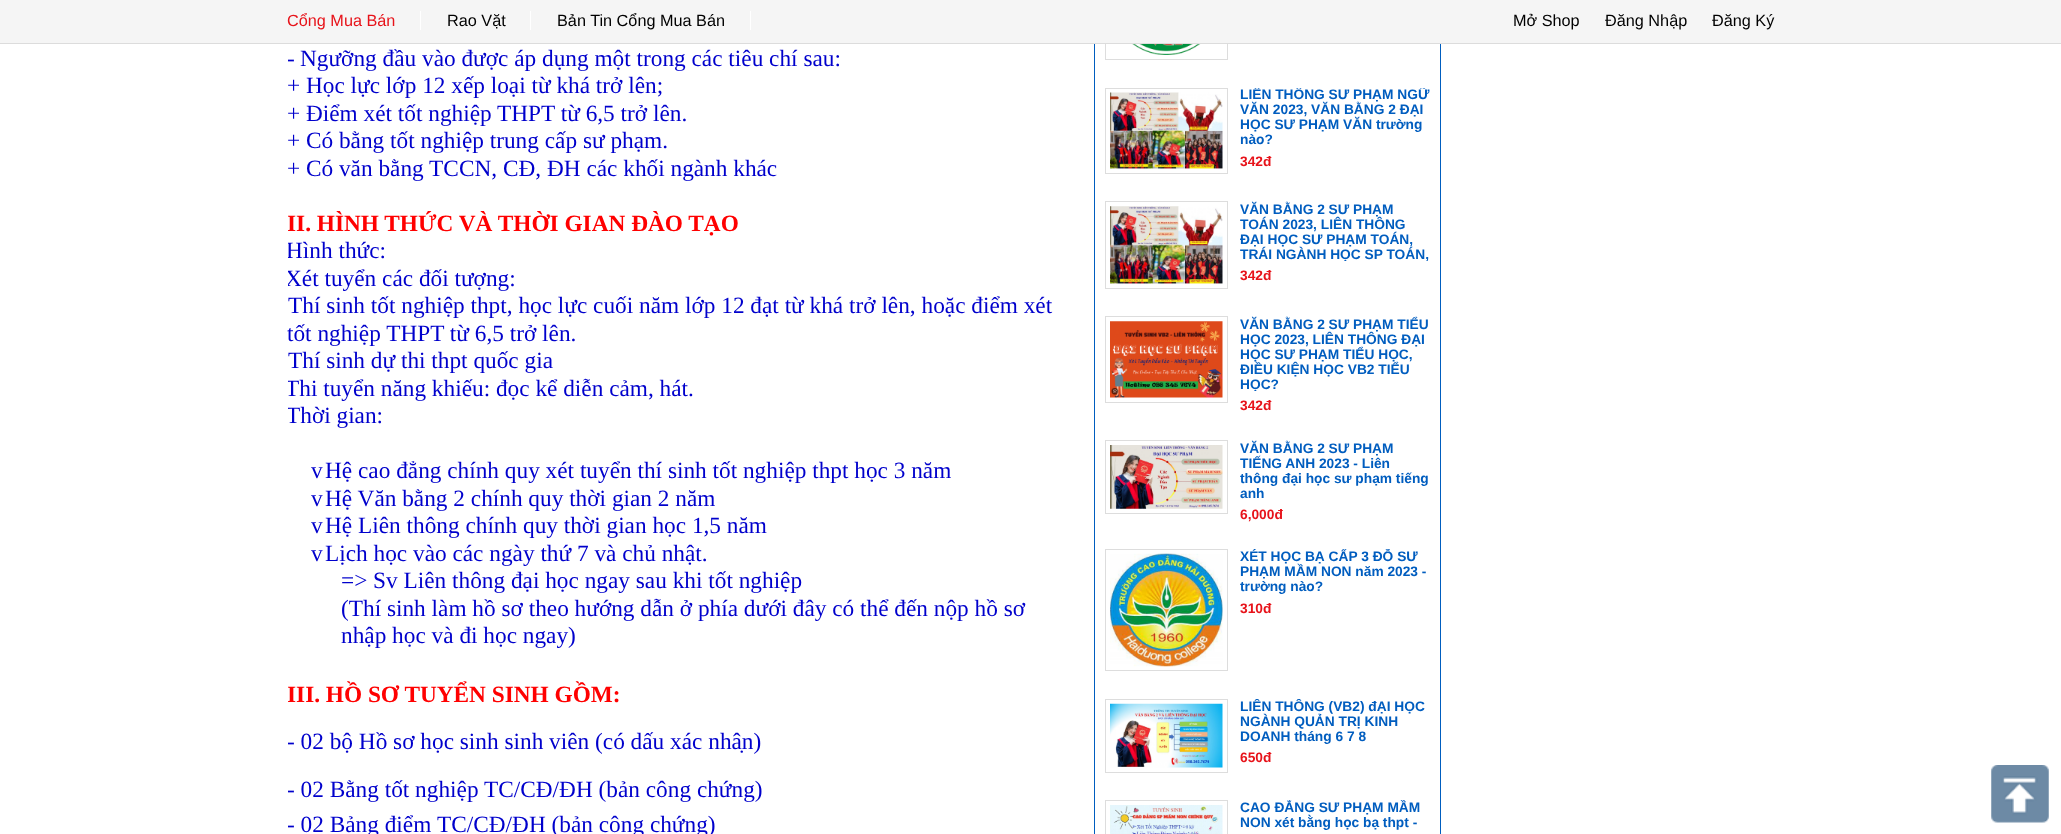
<!DOCTYPE html>
<meta charset="utf-8">
<style>body { margin: 0 } canvas { display: block }</style>
<canvas id="canvas" width="2061" height="834"></canvas>
<script type="module">
  const canvas = document.getElementById("canvas");
  const g = canvas.getContext("2d");
  g.miterLimit = 4;
  g.fontKerning = "normal";
  function drawText(s, x, y, [font, color]) {
    g.font = font;
    g.fillStyle = color;
    g.fillText(s, x, y);
  }
  function fillBox(x, y, w, h, color) {
    g.fillStyle = color;
    g.fillRect(x, y, w, h);
  }
  async function drawPicture(src, x, y, w, h) {
    const img = new Image();
    img.src = src;
    await img.decode();
    g.drawImage(img, x, y, w, h);
  }

  const s1 = ["16.25px Liberation Sans", "#E7131A"];
  const s2 = ["16.25px Liberation Sans", "#000000"];
  const s3 = ["23.3px Liberation Serif", "#0000CC"];
  const s4 = ["bold 23.3px Liberation Serif", "#FF0000"];
  const s5 = ["bold 13.75px Liberation Sans", "#005DBF"];
  const s6 = ["bold 13.75px Liberation Sans", "#E7131A"];

  fillBox(0, 0, 2061, 834, "#FFFFFF");
  g.strokeStyle = "#005DBF";
  g.strokeRect(1094.5, -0.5, 346, 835);
  g.strokeStyle = "#DDDDDD";
  g.strokeRect(1105.5, -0.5, 122, 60);
  fillBox(0, 0, 2061, 43, "#F5F5F5");
  fillBox(0, 43, 2061, 1, "#DCDCDC");
  drawText("Cổng Mua Bán", 287, 26, s1);
  fillBox(420, 11, 1, 19, "#FFFFFF");
  drawText("Rao Vặt", 447, 26, s2);
  fillBox(530, 11, 1, 19, "#FFFFFF");
  drawText("Bản Tin Cổng Mua Bán", 557, 26, s2);
  fillBox(750, 11, 1, 19, "#FFFFFF");
  drawText("Mở Shop", 1513, 26, s2);
  drawText("Đăng Nhập", 1605, 26, s2);
  drawText("Đăng Ký", 1712, 26, s2);
  g.save();
  g.beginPath();
  g.rect(288, 0, 775, 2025);
  g.clip();
  drawText("-", 287, 66, s3);
  g.restore();
  drawText("Ngưỡng đầu vào được áp dụng một trong các tiêu chí sau:", 300, 66, s3);
  drawText("+ Học lực lớp 12 xếp loại từ khá trở lên;", 287, 93, s3);
  drawText("+ Điểm xét tốt nghiệp THPT từ 6,5 trở lên.", 287, 121, s3);
  drawText("+ Có bằng tốt nghiệp trung cấp sư phạm.", 287, 148, s3);
  drawText("+ Có văn bằng TCCN, CĐ, ĐH các khối ngành khác", 287, 176, s3);
  g.save();
  g.beginPath();
  g.rect(288, 0, 775, 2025);
  g.clip();
  drawText("II. HÌNH THỨC VÀ THỜI GIAN ĐÀO TẠO", 287, 231, s4);
  drawText("Hình thức:", 286, 258, s3);
  drawText("Xét tuyển các đối tượng:", 285, 286, s3);
  g.restore();
  drawText("Thí sinh tốt nghiệp thpt, học lực cuối năm lớp 12 đạt từ khá trở lên, hoặc điểm xét", 288, 313, s3);
  drawText("tốt nghiệp THPT từ 6,5 trở lên.", 287, 341, s3);
  drawText("Thí sinh dự thi thpt quốc gia", 288, 368, s3);
  g.save();
  g.beginPath();
  g.rect(288, 0, 775, 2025);
  g.clip();
  drawText("Thi tuyển năng khiếu: đọc kể diễn cảm, hát.", 285, 396, s3);
  drawText("Thời gian:", 286, 423, s3);
  g.restore();
  drawText("v", 311, 478, s3);
  drawText("Hệ cao đẳng chính quy xét tuyển thí sinh tốt nghiệp thpt học 3 năm", 325, 478, s3);
  drawText("v", 311, 506, s3);
  drawText("Hệ Văn bằng 2 chính quy thời gian 2 năm", 325, 506, s3);
  drawText("v", 311, 533, s3);
  drawText("Hệ Liên thông chính quy thời gian học 1,5 năm", 325, 533, s3);
  drawText("v", 311, 561, s3);
  drawText("Lịch học vào các ngày thứ 7 và chủ nhật.", 325, 561, s3);
  drawText("=> Sv Liên thông đại học ngay sau khi tốt nghiệp", 341, 588, s3);
  drawText("(Thí sinh làm hồ sơ theo hướng dẫn ở phía dưới đây có thể đến nộp hồ sơ", 341, 616, s3);
  drawText("nhập học và đi học ngay)", 341, 643, s3);
  g.save();
  g.beginPath();
  g.rect(288, 0, 775, 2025);
  g.clip();
  drawText("III. HỒ SƠ TUYỂN SINH GỒM:", 287, 702, s4);
  drawText("- 02 bộ Hồ sơ học sinh sinh viên (có dấu xác nhận)", 287, 749, s3);
  drawText("- 02 Bằng tốt nghiệp", 287, 797, s3);
  g.restore();
  drawText("TC/CĐ/ĐH (bản công chứng)", 484, 797, s3);
  g.save();
  g.beginPath();
  g.rect(288, 0, 775, 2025);
  g.clip();
  drawText("- 02 Bảng điểm", 287, 832, s3);
  g.restore();
  drawText("TC/CĐ/ĐH (bản công chứng)", 437, 832, s3);
  await drawPicture("pic1.png", 1110, 44, 113, 11);
  g.strokeRect(1105.5, 88.5, 122, 85);
  await drawPicture("pic2.png", 1110, 92, 113, 77);
  g.save();
  g.beginPath();
  g.rect(1240, 88, 190, 60);
  g.clip();
  drawText("LIÊN THÔNG SƯ PHẠM NGỮ", 1240, 99, s5);
  g.restore();
  drawText("VĂN 2023, VĂN BẰNG 2 ĐẠI", 1240, 114, s5);
  drawText("HỌC SƯ PHẠM VĂN trường", 1240, 129, s5);
  drawText("nào?", 1240, 144, s5);
  drawText("342đ", 1240, 166, s6);
  g.strokeRect(1105.5, 201.5, 122, 87);
  await drawPicture("pic3.png", 1110, 206, 113, 78);
  drawText("VĂN BẰNG 2 SƯ PHẠM", 1240, 214, s5);
  drawText("TOÁN 2023, LIÊN THÔNG", 1240, 229, s5);
  drawText("ĐẠI HỌC SƯ PHẠM TOÁN,", 1240, 244, s5);
  g.save();
  g.beginPath();
  g.rect(1240, 201, 190, 60);
  g.clip();
  drawText("TRÁI NGÀNH HỌC SP TOÁN,", 1240, 259, s5);
  g.restore();
  drawText("342đ", 1240, 280, s6);
  g.strokeRect(1105.5, 316.5, 122, 86);
  await drawPicture("pic4.png", 1110, 321, 113, 77);
  drawText("VĂN BẰNG 2 SƯ PHẠM TIỂU", 1240, 329, s5);
  drawText("HỌC 2023, LIÊN THÔNG ĐẠI", 1240, 344, s5);
  drawText("HỌC SƯ PHẠM TIỂU HỌC,", 1240, 359, s5);
  drawText("ĐIỀU KIỆN HỌC VB2 TIỂU", 1240, 374, s5);
  g.save();
  g.beginPath();
  g.rect(1240, 316, 190, 75);
  g.clip();
  drawText("HỌC?", 1240, 389, s5);
  g.restore();
  drawText("342đ", 1240, 410, s6);
  g.strokeRect(1105.5, 440.5, 122, 73);
  await drawPicture("pic5.png", 1110, 445, 113, 64);
  drawText("VĂN BẰNG 2 SƯ PHẠM", 1240, 453, s5);
  drawText("TIẾNG ANH 2023 - Liên", 1240, 468, s5);
  drawText("thông đại học sư phạm tiếng", 1240, 483, s5);
  drawText("anh", 1240, 498, s5);
  drawText("6,000đ", 1240, 519, s6);
  g.strokeRect(1105.5, 549.5, 122, 121);
  await drawPicture("pic6.png", 1110, 553, 113, 114);
  g.save();
  g.beginPath();
  g.rect(1240, 549, 190, 45);
  g.clip();
  drawText("XÉT HỌC BẠ CẤP 3 ĐỖ SƯ", 1240, 561, s5);
  g.restore();
  drawText("PHẠM MẦM NON năm 2023 -", 1240, 576, s5);
  drawText("trường nào?", 1240, 591, s5);
  drawText("310đ", 1240, 613, s6);
  g.strokeRect(1105.5, 699.5, 122, 73);
  await drawPicture("pic7.png", 1110, 703, 113, 65);
  g.save();
  g.beginPath();
  g.rect(1240, 699, 190, 45);
  g.clip();
  drawText("LIÊN THÔNG (VB2) đẠI HỌC", 1240, 711, s5);
  g.restore();
  drawText("NGÀNH QUẢN TRỊ KINH", 1240, 726, s5);
  drawText("DOANH tháng 6 7 8", 1240, 741, s5);
  drawText("650đ", 1240, 762, s6);
  g.strokeRect(1105.5, 800.5, 122, 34);
  await drawPicture("pic8.png", 1110, 805, 113, 29);
  g.save();
  g.beginPath();
  g.rect(1240, 800, 190, 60);
  g.clip();
  drawText("CAO ĐẲNG SƯ PHẠM MẦM", 1240, 812, s5);
  g.restore();
  drawText("NON xét bằng học bạ thpt -", 1240, 827, s5);
  await drawPicture("pic9.png", 1991, 765, 58, 58);
</script>
